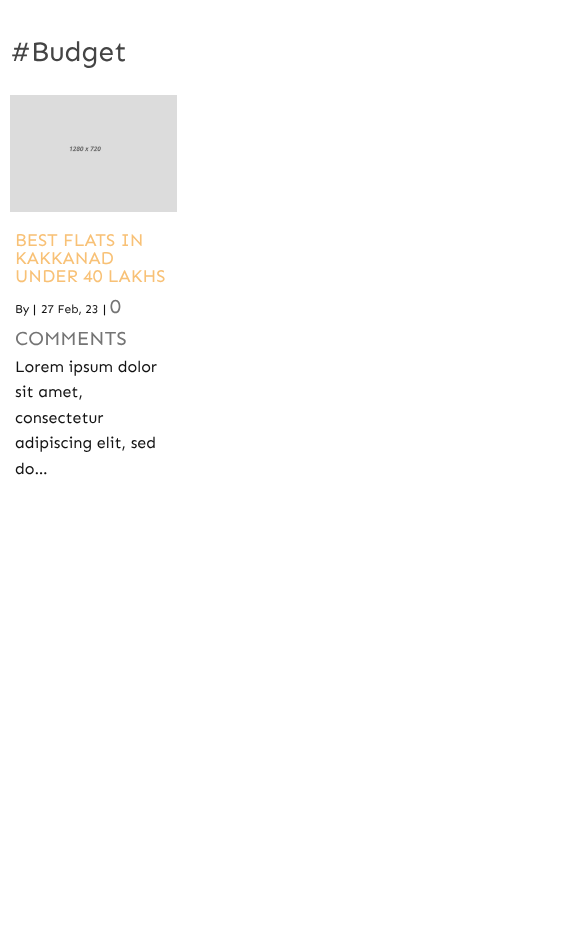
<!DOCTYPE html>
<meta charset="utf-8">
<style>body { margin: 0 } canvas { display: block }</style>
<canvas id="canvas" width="561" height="927"></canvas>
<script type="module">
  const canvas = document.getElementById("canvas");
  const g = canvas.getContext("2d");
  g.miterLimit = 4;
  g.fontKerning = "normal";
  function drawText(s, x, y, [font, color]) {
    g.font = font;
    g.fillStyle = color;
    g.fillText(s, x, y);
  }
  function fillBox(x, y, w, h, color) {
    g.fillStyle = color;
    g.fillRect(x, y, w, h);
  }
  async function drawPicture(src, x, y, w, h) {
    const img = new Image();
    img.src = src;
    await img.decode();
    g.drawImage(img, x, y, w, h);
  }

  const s1 = ["28px Sen", "#444444"];
  const s2 = ["18px Sen", "#F8C176"];
  const s3 = ["12px Sen", "#121212"];
  const s4 = ["600 12px Sen", "#121212"];
  const s5 = ["20px Sen", "#747474"];
  const s6 = ["16px Sen", "#121212"];

  fillBox(0, 0, 561, 927, "#FFFFFF");
  drawText("#Budget", 10, 61, s1);
  await drawPicture("pic1.png", 10, 95, 167, 117);
  drawText("BEST FLATS IN", 15, 246, s2);
  drawText("KAKKANAD", 15, 264, s2);
  drawText("UNDER 40 LAKHS", 15, 282, s2);
  drawText("By", 15, 313, s3);
  drawText("|", 33, 313, s4);
  drawText("27 Feb, 23", 41, 313, s3);
  drawText("|", 103, 313, s4);
  drawText("0", 110, 313, s5);
  drawText("COMMENTS", 15, 345, s5);
  drawText("Lorem ipsum dolor", 15, 372, s6);
  drawText("sit amet,", 15, 397, s6);
  drawText("consectetur", 15, 423, s6);
  drawText("adipiscing elit, sed", 15, 448, s6);
  drawText("do…", 15, 474, s6);
</script>
